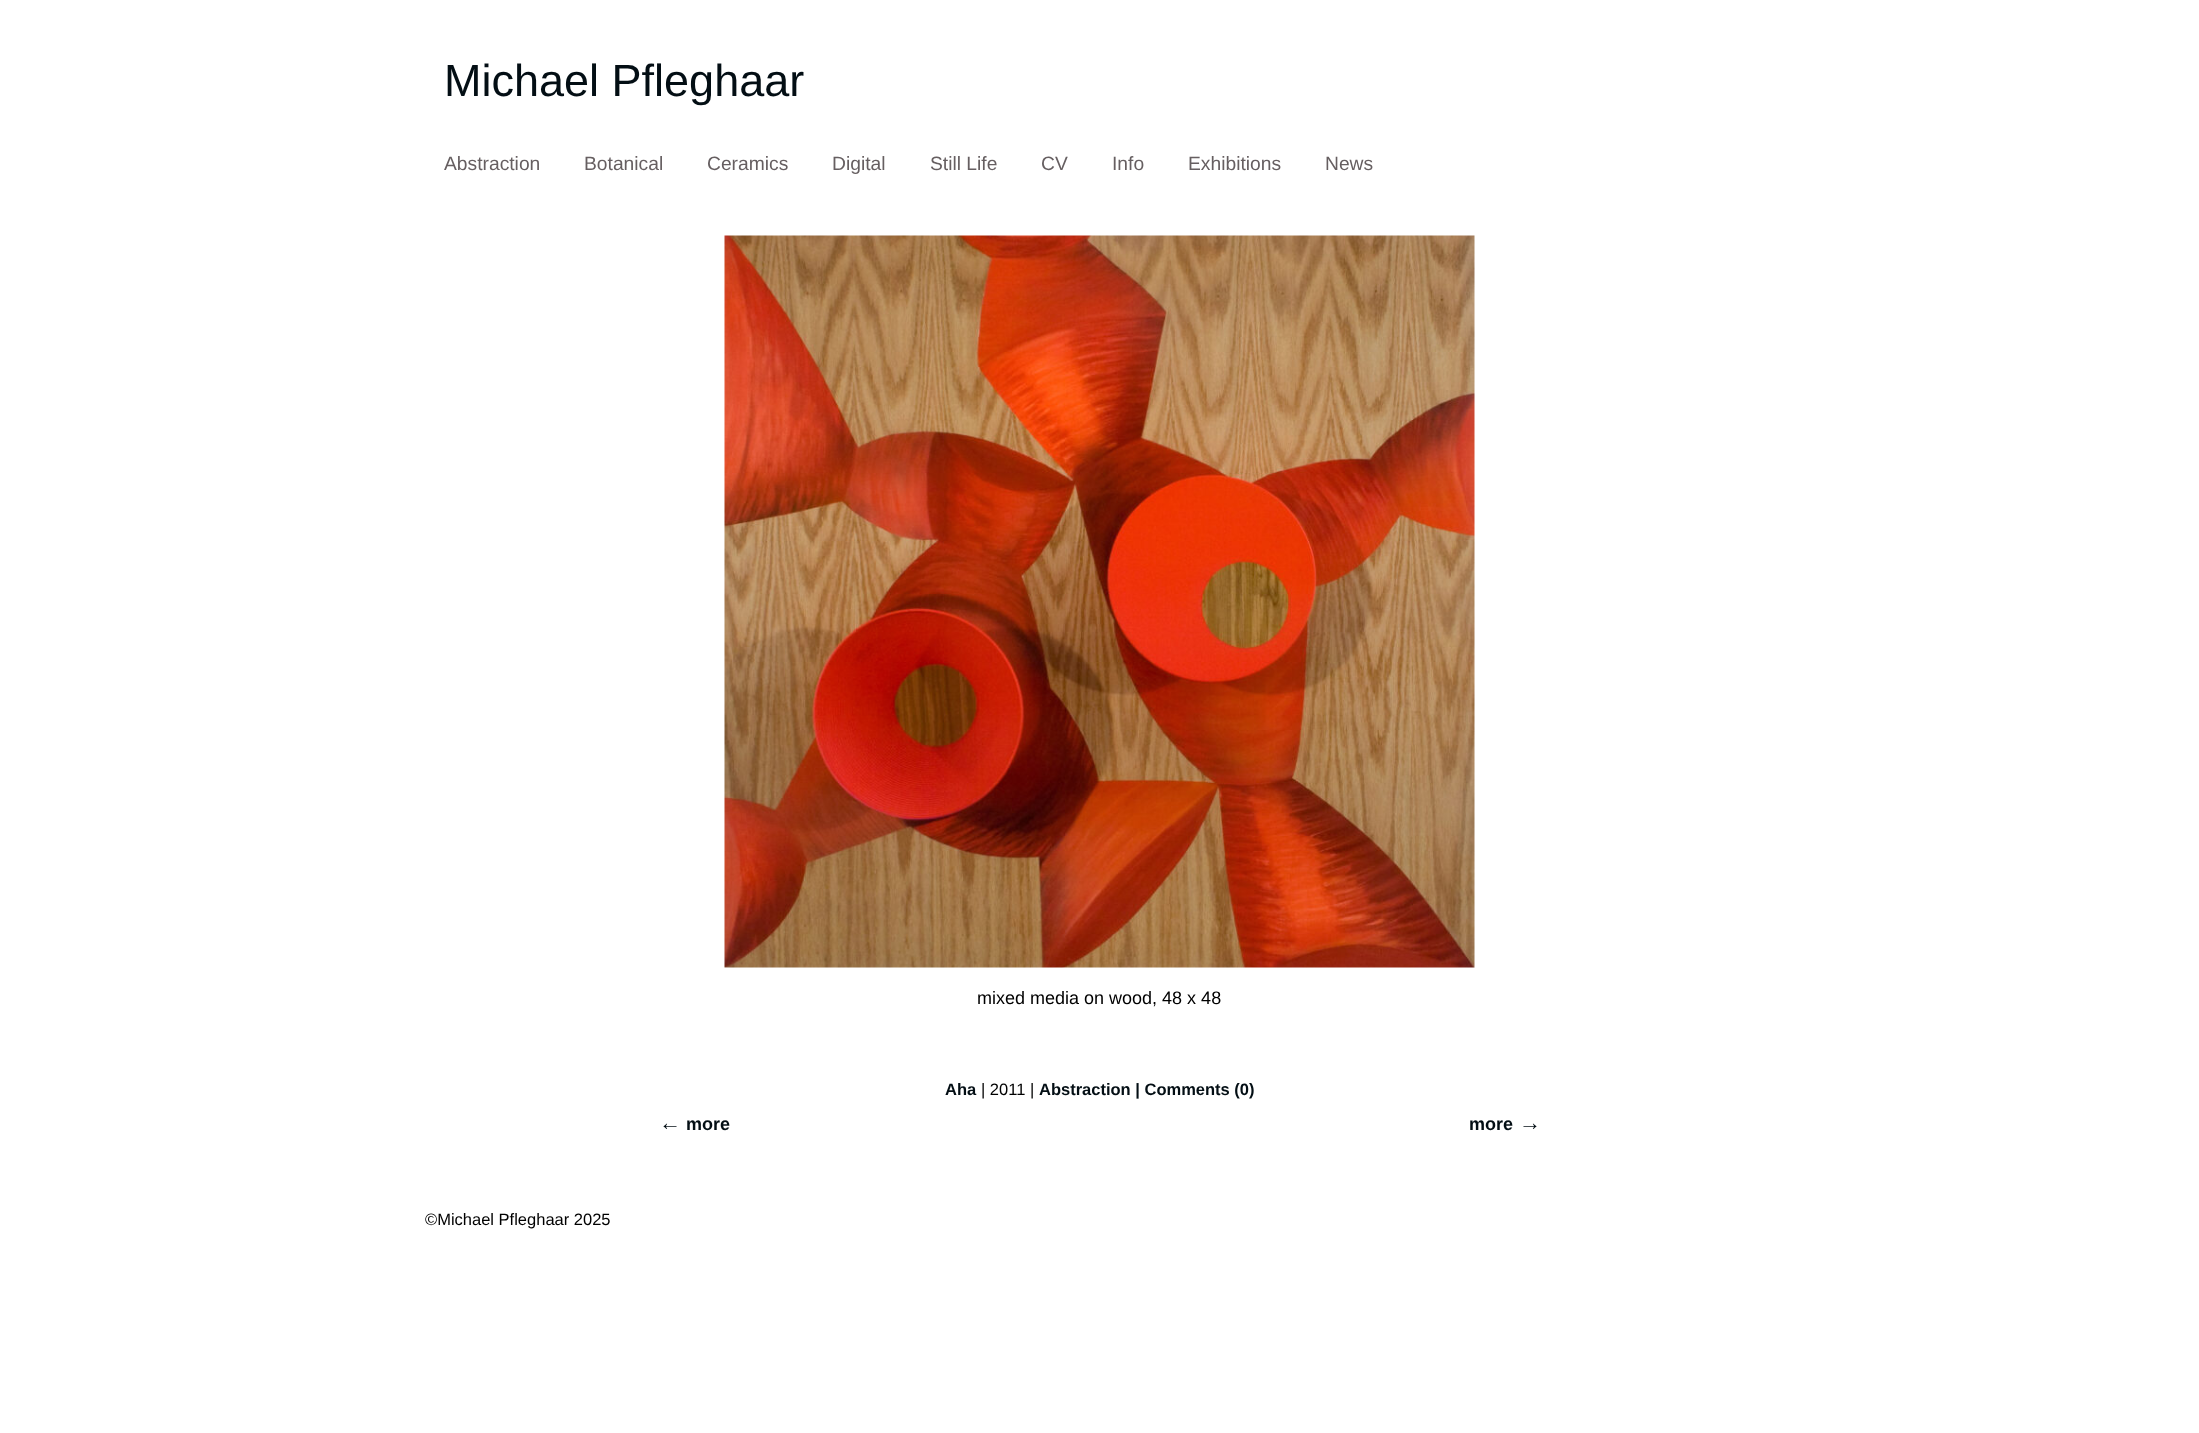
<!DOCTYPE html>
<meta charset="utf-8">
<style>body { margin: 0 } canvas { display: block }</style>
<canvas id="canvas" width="2199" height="1433"></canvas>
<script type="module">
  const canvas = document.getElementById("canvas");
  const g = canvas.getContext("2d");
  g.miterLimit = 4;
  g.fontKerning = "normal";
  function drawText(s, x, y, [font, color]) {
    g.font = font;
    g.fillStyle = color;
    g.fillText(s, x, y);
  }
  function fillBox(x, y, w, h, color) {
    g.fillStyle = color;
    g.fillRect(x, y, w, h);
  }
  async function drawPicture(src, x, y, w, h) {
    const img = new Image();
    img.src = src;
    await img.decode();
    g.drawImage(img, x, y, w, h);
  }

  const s1 = ["45px Liberation Sans", "#030E14"];
  const s2 = ["19.25px Liberation Sans", "#665F61"];
  const s3 = ["18px Liberation Sans", "#000000"];
  const s4 = ["bold 16.5px Liberation Sans", "#030E14"];
  const s5 = ["16.5px Liberation Sans", "#000000"];
  const s6 = ["bold 22px Liberation Sans", "#030E14"];
  const s7 = ["bold 18px Liberation Sans", "#030E14"];

  fillBox(0, 0, 2199, 1433, "#FFFFFF");
  drawText("Michael Pfleghaar", 444, 96, s1);
  drawText("Abstraction", 444, 170, s2);
  drawText("Botanical", 584, 170, s2);
  drawText("Ceramics", 707, 170, s2);
  drawText("Digital", 832, 170, s2);
  drawText("Still Life", 930, 170, s2);
  drawText("CV", 1041, 170, s2);
  drawText("Info", 1112, 170, s2);
  drawText("Exhibitions", 1188, 170, s2);
  drawText("News", 1325, 170, s2);
  await drawPicture("pic1.png", 724, 235, 751, 733);
  drawText("mixed media on wood, 48 x 48", 977, 1004, s3);
  drawText("Aha", 945, 1095, s4);
  drawText("| 2011 |", 981, 1095, s5);
  drawText("Abstraction | Comments (0)", 1039, 1095, s4);
  drawText("←", 659, 1130, s6);
  drawText("more", 686, 1130, s7);
  drawText("more", 1469, 1130, s7);
  drawText("→", 1519, 1130, s6);
  drawText("©Michael Pfleghaar 2025", 425, 1225, s5);
</script>
